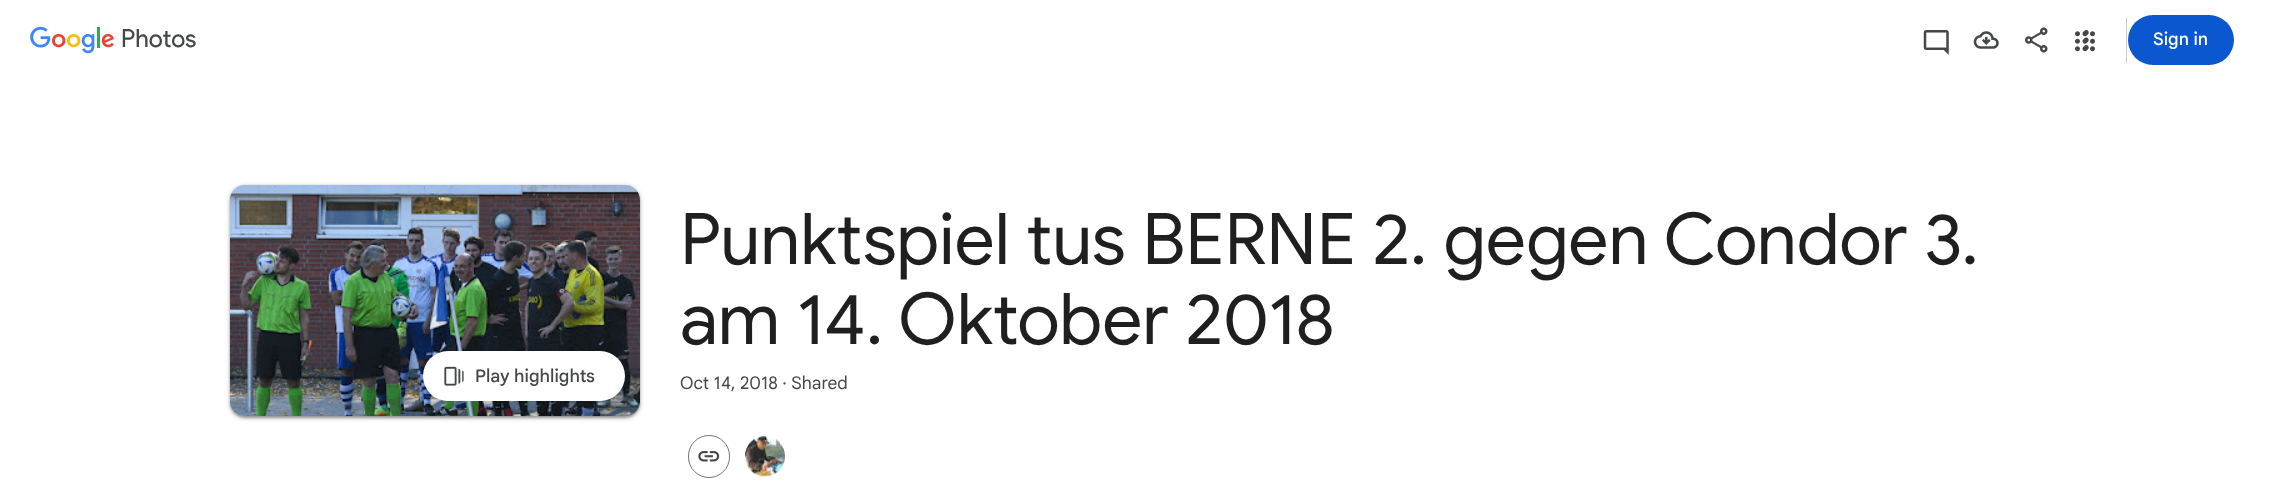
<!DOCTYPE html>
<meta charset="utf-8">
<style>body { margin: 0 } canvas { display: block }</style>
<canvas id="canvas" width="2278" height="482"></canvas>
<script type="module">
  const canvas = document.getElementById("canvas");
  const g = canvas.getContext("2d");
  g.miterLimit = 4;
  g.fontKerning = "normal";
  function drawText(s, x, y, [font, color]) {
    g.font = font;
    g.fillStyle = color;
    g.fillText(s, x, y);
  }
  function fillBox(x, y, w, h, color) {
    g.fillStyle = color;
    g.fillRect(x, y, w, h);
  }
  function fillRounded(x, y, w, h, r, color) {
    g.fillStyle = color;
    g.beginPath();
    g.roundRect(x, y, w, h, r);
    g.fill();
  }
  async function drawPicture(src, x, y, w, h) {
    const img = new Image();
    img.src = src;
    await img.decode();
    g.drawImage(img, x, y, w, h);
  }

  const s1 = ["25px Product Sans", "#444746"];
  const s2 = ["500 17.5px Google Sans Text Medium", "#444746"];
  const s3 = ["71.25px Google Sans", "#1F1F1F"];
  const s4 = ["17.5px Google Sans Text", "#444746"];
  const s5 = ["500 17.5px Google Sans Text Medium", "#FFFFFF"];

  fillBox(0, 0, 2278, 482, "#FFFFFF");
  await drawPicture("pic1.png", 30, 26, 84, 28);
  drawText("Photos", 121, 47, s1);
  await drawPicture("pic2.png", 1923, 30, 26, 25);
  await drawPicture("pic3.png", 1973, 31, 26, 18);
  await drawPicture("pic4.png", 2025, 27, 23, 26);
  await drawPicture("pic5.png", 2083, 30, 6, 20);
  fillBox(2126, 18, 1, 45, "#C4C7C5");
  g.fillStyle = "rgba(0, 0, 0, 0.15)";
  g.filter = "blur(2px)";
  g.beginPath();
  g.roundRect(229, 185, 412, 234, 16);
  g.fill();
  g.filter = "none";
  g.fillStyle = "rgba(0, 0, 0, 0.3)";
  g.filter = "blur(1px)";
  g.beginPath();
  g.roundRect(230, 186, 410, 232, 15);
  g.fill();
  g.filter = "none";
  await drawPicture("pic6.png", 230, 185, 410, 232);
  fillRounded(423, 351, 202, 50, 25, "#FFFFFF");
  await drawPicture("pic7.png", 444, 366, 20, 20);
  drawText("Play highlights", 475, 382, s2);
  drawText("Punktspiel tus BERNE 2. gegen Condor 3.", 680, 264, s3);
  drawText("am 14. Oktober 2018", 680, 344, s3);
  drawText("Oct 14, 2018 · Shared", 680, 389, s4);
  g.beginPath();
  g.roundRect(688.5, 435.5, 41, 42, 20.5);
  g.strokeStyle = "#747775";
  g.stroke();
  await drawPicture("pic8.png", 698, 451, 22, 11);
  await drawPicture("pic9.png", 745, 436, 40, 41);
  await drawPicture("pic10.png", 2075, 31, 20, 21);
  fillRounded(2128, 15, 106, 50, 25, "#0B57D0");
  drawText("Sign in", 2153, 45, s5);
</script>
